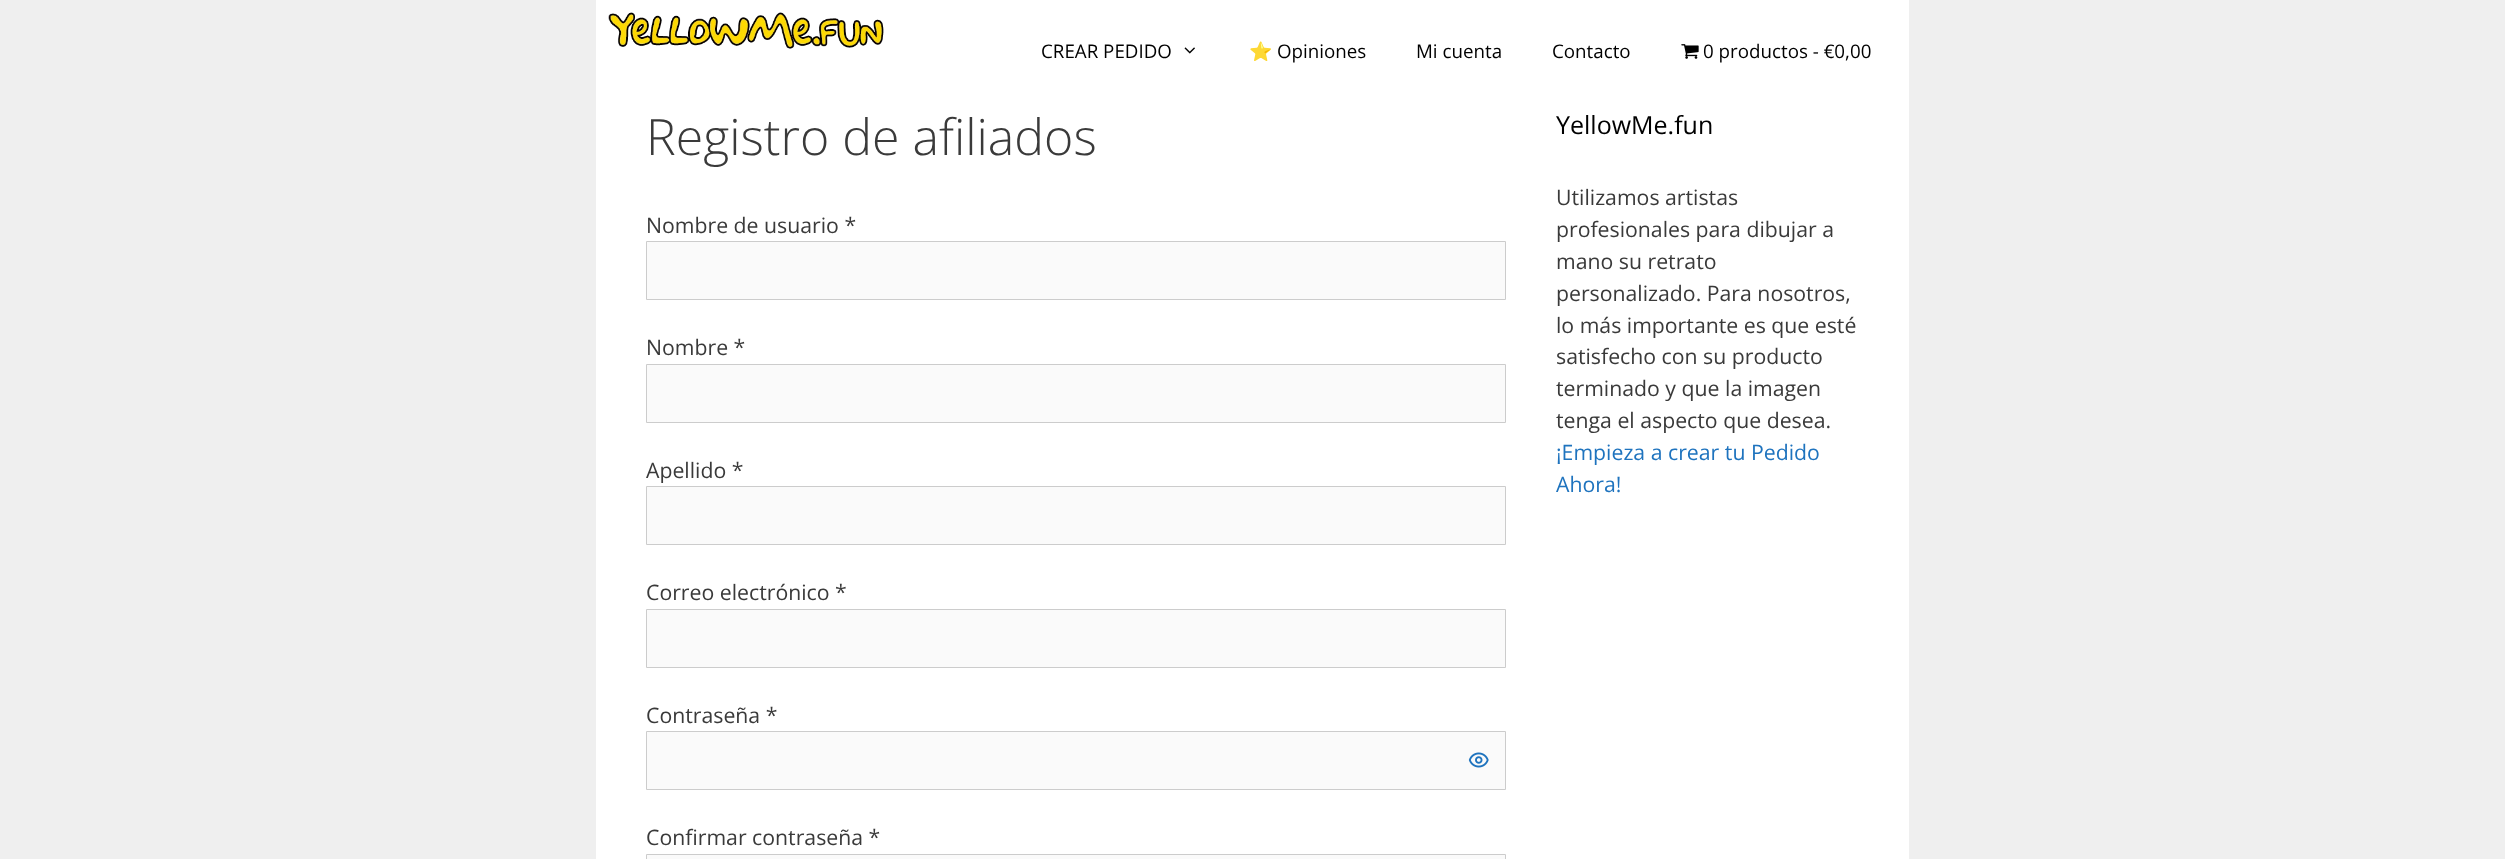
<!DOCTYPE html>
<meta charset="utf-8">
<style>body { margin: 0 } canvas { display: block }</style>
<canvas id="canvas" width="2505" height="859"></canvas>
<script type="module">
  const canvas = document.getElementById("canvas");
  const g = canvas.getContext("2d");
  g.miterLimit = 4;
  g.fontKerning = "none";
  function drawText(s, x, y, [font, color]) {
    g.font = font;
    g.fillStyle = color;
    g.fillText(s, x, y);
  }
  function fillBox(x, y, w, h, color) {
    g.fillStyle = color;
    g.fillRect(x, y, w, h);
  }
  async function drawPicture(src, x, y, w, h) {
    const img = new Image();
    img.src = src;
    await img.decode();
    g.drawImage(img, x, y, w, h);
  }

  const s1 = ["18.75px Open Sans", "#000000"];
  const s2 = ["18.75px Noto Color Emoji", "#000000"];
  const s3 = ["300 50px Open Sans", "#3A3A3A"];
  const s4 = ["21.25px Open Sans", "#3A3A3A"];
  const s5 = ["25px Open Sans", "#000000"];
  const s6 = ["21.25px Open Sans", "#1E73BE"];

  fillBox(0, 0, 2505, 859, "#EFEFEF");
  fillBox(596, 0, 1313, 859, "#FFFFFF");
  await drawPicture("pic1.png", 608, 12, 276, 37);
  drawText("CREAR PEDIDO", 1041, 58, s1);
  await drawPicture("pic2.png", 1184, 47, 11, 7);
  drawText("⭐", 1249, 58, s2);
  drawText("Opiniones", 1277, 58, s1);
  drawText("Mi cuenta", 1416, 58, s1);
  drawText("Contacto", 1552, 58, s1);
  await drawPicture("pic3.png", 1681, 44, 18, 15);
  drawText("0 productos - €0,00", 1703, 58, s1);
  drawText("Registro de afiliados", 646, 155, s3);
  drawText("Nombre de usuario *", 646, 233, s4);
  g.fillStyle = "#FAFAFA";
  g.beginPath();
  g.rect(646.5, 241.5, 859, 58);
  g.fill();
  g.strokeStyle = "#CCCCCC";
  g.stroke();
  drawText("Nombre *", 646, 355, s4);
  g.fillStyle = "#FAFAFA";
  g.beginPath();
  g.rect(646.5, 364.5, 859, 58);
  g.fill();
  g.stroke();
  drawText("Apellido *", 646, 478, s4);
  g.fillStyle = "#FAFAFA";
  g.beginPath();
  g.rect(646.5, 486.5, 859, 58);
  g.fill();
  g.stroke();
  drawText("Correo electrónico *", 646, 600, s4);
  g.fillStyle = "#FAFAFA";
  g.beginPath();
  g.rect(646.5, 609.5, 859, 58);
  g.fill();
  g.stroke();
  drawText("Contraseña *", 646, 723, s4);
  g.fillStyle = "#FAFAFA";
  g.beginPath();
  g.rect(646.5, 731.5, 859, 58);
  g.fill();
  g.stroke();
  await drawPicture("pic4.png", 1468, 752, 21, 16);
  drawText("Confirmar contraseña *", 646, 845, s4);
  g.fillStyle = "#FAFAFA";
  g.beginPath();
  g.rect(646.5, 854.5, 859, 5);
  g.fill();
  g.stroke();
  drawText("YellowMe.fun", 1556, 134, s5);
  drawText("Utilizamos artistas", 1556, 205, s4);
  drawText("profesionales para dibujar a", 1556, 237, s4);
  drawText("mano su retrato", 1556, 269, s4);
  drawText("personalizado. Para nosotros,", 1556, 301, s4);
  drawText("lo más importante es que esté", 1556, 333, s4);
  drawText("satisfecho con su producto", 1556, 364, s4);
  drawText("terminado y que la imagen", 1556, 396, s4);
  drawText("tenga el aspecto que desea.", 1556, 428, s4);
  drawText("¡Empieza a crear tu Pedido", 1556, 460, s6);
  drawText("Ahora!", 1556, 492, s6);
</script>
